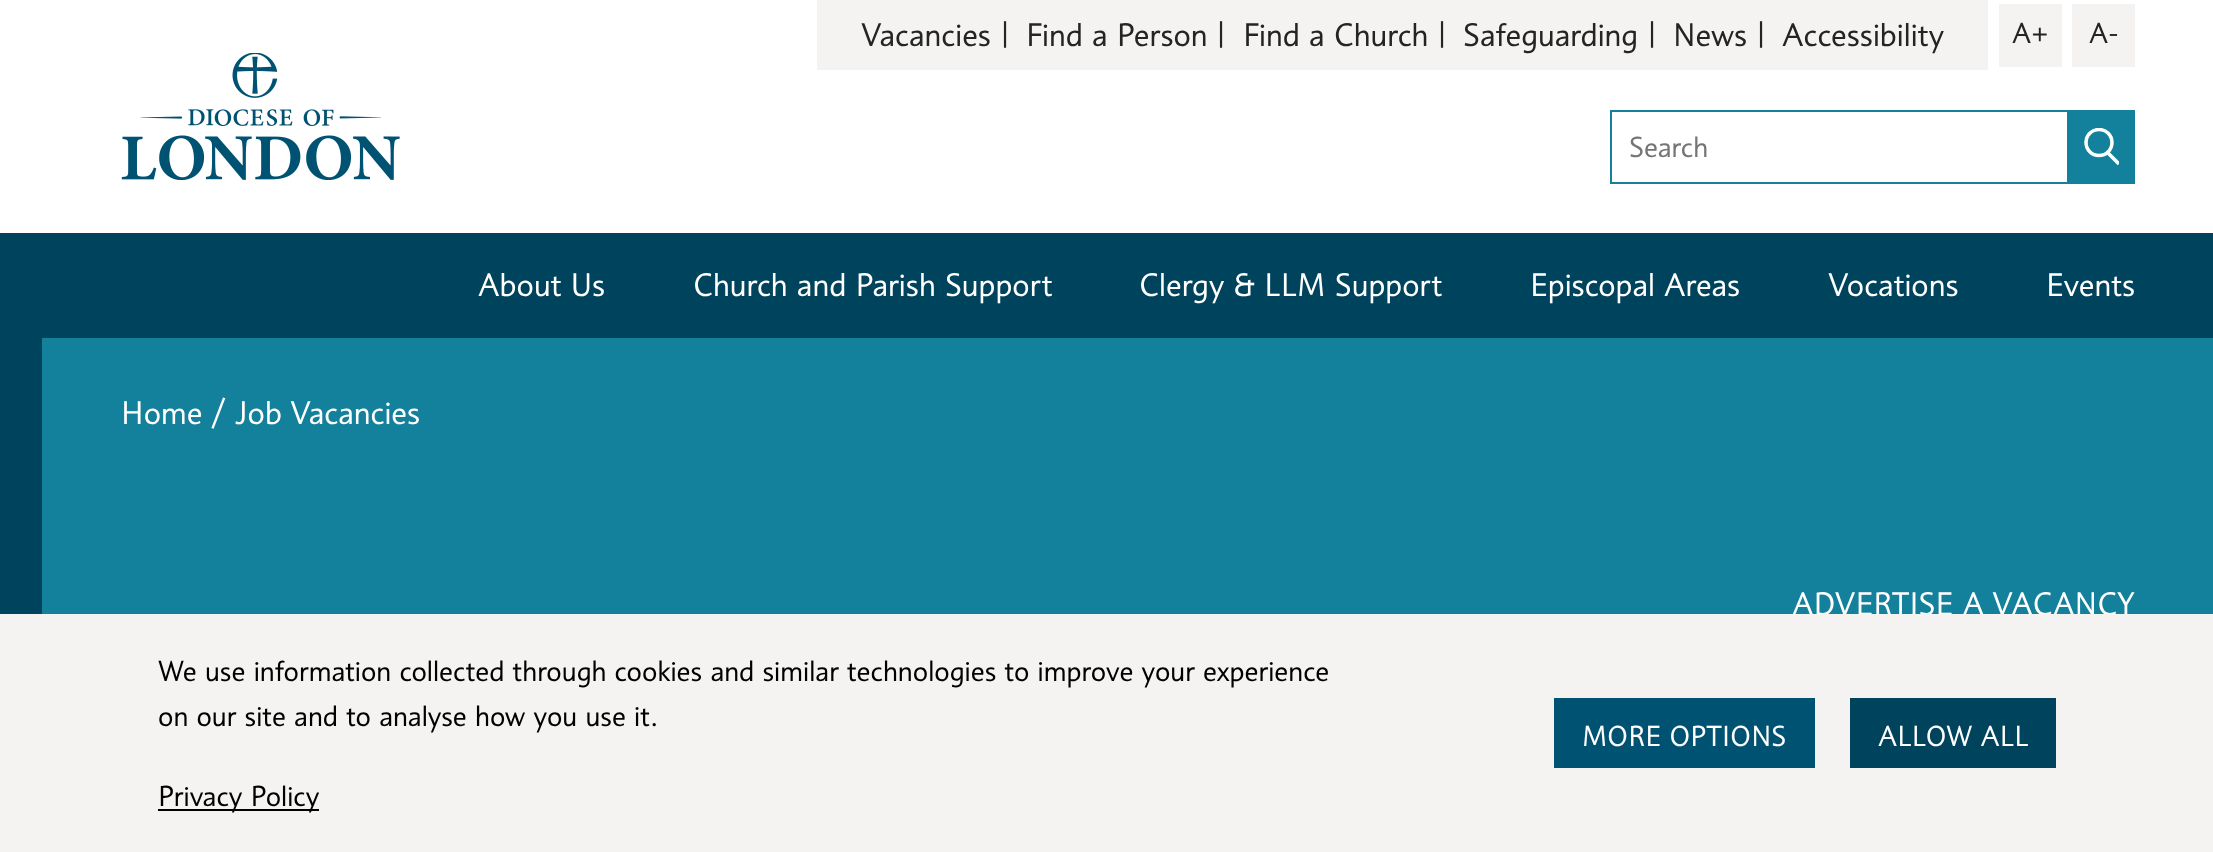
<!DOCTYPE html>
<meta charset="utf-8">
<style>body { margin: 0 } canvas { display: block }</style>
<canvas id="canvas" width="2213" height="852"></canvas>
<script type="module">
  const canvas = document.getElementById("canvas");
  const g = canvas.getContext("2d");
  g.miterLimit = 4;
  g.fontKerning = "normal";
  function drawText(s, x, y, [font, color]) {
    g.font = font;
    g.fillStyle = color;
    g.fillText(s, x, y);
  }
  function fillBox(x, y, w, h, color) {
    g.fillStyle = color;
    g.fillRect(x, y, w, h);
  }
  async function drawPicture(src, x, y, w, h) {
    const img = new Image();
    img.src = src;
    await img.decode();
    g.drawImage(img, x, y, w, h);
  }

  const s1 = ["31.5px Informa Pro", "#242424"];
  const s2 = ["28px Informa Pro", "#242424"];
  const s3 = ["28px Informa Pro", "#757575"];
  const s4 = ["31.5px Informa Pro", "#FFFFFF"];
  const s5 = ["28px Informa Pro", "#000000"];
  const s6 = ["28px Informa Pro", "#FFFFFF"];

  fillBox(0, 0, 2213, 852, "#FFFFFF");
  fillBox(817, 0, 1171, 70, "#F4F3F2");
  drawText("Vacancies", 861, 46, s1);
  drawText("|", 1001, 43, s2);
  drawText("Find a Person", 1026, 46, s1);
  drawText("|", 1217, 43, s2);
  drawText("Find a Church", 1243, 46, s1);
  drawText("|", 1438, 43, s2);
  drawText("Safeguarding", 1463, 46, s1);
  drawText("|", 1648, 43, s2);
  drawText("News", 1673, 46, s1);
  drawText("|", 1757, 43, s2);
  drawText("Accessibility", 1782, 46, s1);
  fillBox(1999, 4, 63, 63, "#F4F3F2");
  drawText("A+", 2012, 43, s2);
  fillBox(2072, 4, 63, 63, "#F4F3F2");
  drawText("A-", 2089, 43, s2);
  await drawPicture("pic1.png", 121, 53, 279, 127);
  g.strokeStyle = "#13819B";
  g.lineWidth = 2;
  g.strokeRect(1611, 111, 457, 72);
  drawText("Search", 1629, 157, s3);
  fillBox(2069, 110, 66, 74, "#13819B");
  g.save();
  g.beginPath();
  g.rect(2084, 128, 35, 38);
  g.clip();
  g.beginPath();
  g.moveTo(2106.5, 151.5);
  g.lineTo(2119, 164);
  g.strokeStyle = "#FFFFFF";
  g.lineWidth = 3.5;
  g.stroke();
  g.beginPath();
  g.arc(2099, 142.5, 13, 0, Math.PI * 2);
  g.stroke();
  g.restore();
  fillBox(0, 233, 2213, 105, "#00435D");
  drawText("About Us", 478, 296, s4);
  drawText("Church and Parish Support", 693, 296, s4);
  drawText("Clergy & LLM Support", 1139, 296, s4);
  drawText("Episcopal Areas", 1530, 296, s4);
  drawText("Vocations", 1828, 296, s4);
  drawText("Events", 2046, 296, s4);
  fillBox(0, 338, 42, 276, "#00435D");
  fillBox(42, 338, 2171, 276, "#13819B");
  drawText("Home", 121, 424, s4);
  drawText("/ Job Vacancies", 211, 424, s4);
  drawText("ADVERTISE A VACANCY", 1792, 615, s4);
  fillBox(0, 614, 2213, 238, "#F4F3F2");
  drawText("We use information collected through cookies and similar technologies to improve your experience", 158, 681, s5);
  drawText("on our site and to analyse how you use it.", 158, 726, s5);
  fillBox(158, 809, 161, 2, "#000000");
  drawText("Privacy Policy", 158, 806, s5);
  fillBox(1554, 698, 261, 70, "#005272");
  drawText("MORE OPTIONS", 1582, 746, s6);
  fillBox(1850, 698, 206, 70, "#00435D");
  drawText("ALLOW ALL", 1878, 746, s6);
</script>
